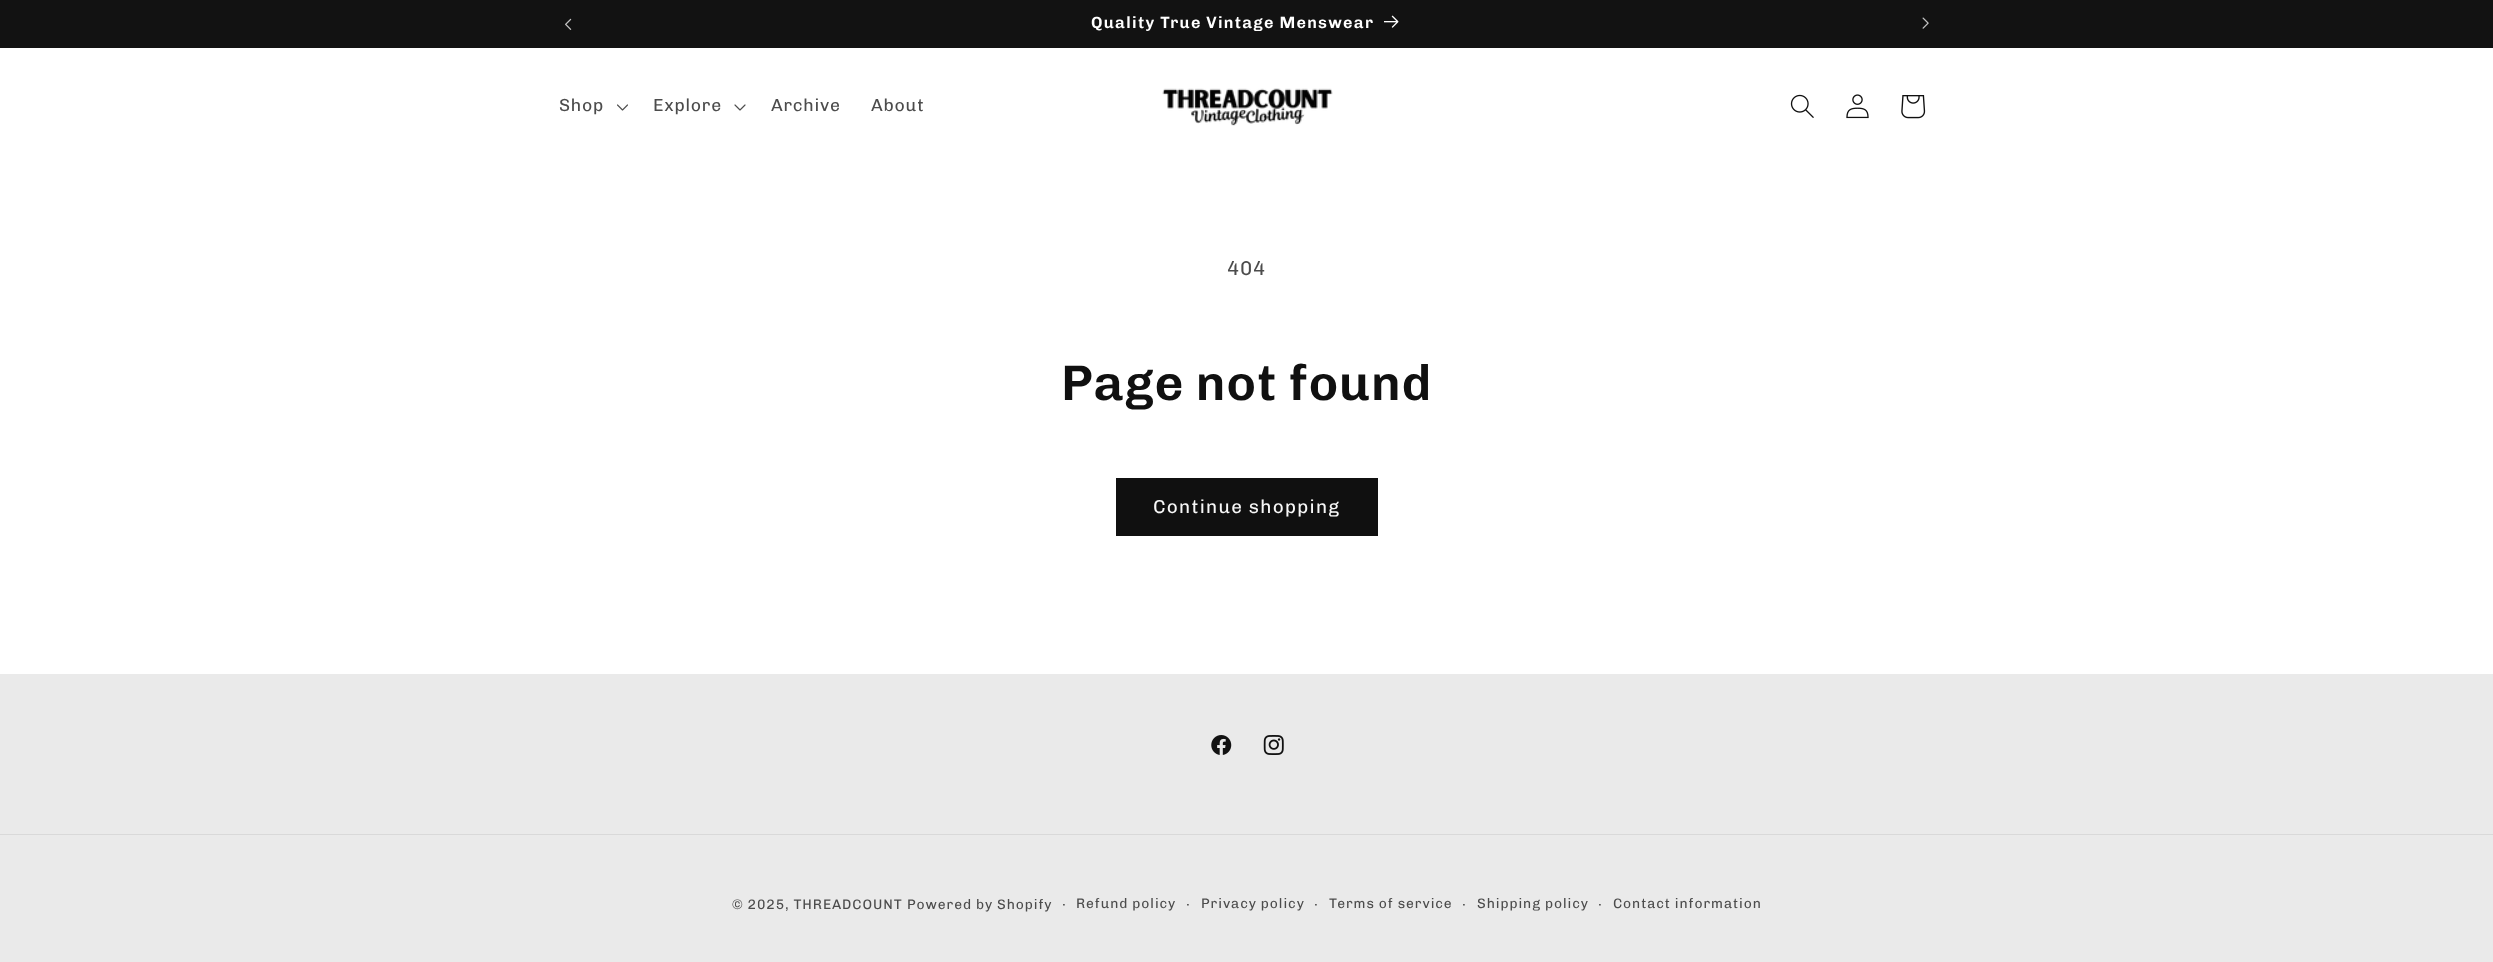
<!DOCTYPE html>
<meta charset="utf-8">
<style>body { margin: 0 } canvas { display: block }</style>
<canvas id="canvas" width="2493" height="962"></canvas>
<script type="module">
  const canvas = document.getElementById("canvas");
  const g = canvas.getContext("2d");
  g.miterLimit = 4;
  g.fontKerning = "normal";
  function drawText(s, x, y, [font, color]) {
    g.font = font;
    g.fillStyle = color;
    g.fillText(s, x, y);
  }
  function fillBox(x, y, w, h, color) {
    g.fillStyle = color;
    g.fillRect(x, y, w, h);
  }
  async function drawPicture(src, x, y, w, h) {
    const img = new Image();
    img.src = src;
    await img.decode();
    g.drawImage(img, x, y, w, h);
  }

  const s1 = ["600 16.25px Chivo", "#FFFFFF"];
  const s2 = ["17.5px Chivo", "#4C4C4C"];
  const s3 = ["20px Chivo", "#4C4C4C"];
  const s4 = ["600 50px Chivo", "#101010"];
  const s5 = ["18.75px Chivo", "#F7F7F7"];
  const s6 = ["13.75px Chivo", "#4C4C4C"];
  const s7 = ["15px Chivo", "#4C4C4C"];

  fillBox(0, 0, 2493, 962, "#FFFFFF");
  fillBox(0, 0, 2493, 48, "#121212");
  await drawPicture("pic1.png", 565, 18, 7, 12);
  g.letterSpacing = "1.25px";
  drawText("Quality True Vintage Menswear", 1091, 28, s1);
  await drawPicture("pic2.png", 1384, 15, 15, 13);
  await drawPicture("pic3.png", 1922, 17, 7, 12);
  g.letterSpacing = "0.75px";
  drawText("Shop", 559, 111, s2);
  await drawPicture("pic4.png", 617, 104, 11, 7);
  drawText("Explore", 653, 111, s2);
  await drawPicture("pic5.png", 734, 104, 12, 7);
  drawText("Archive", 771, 111, s2);
  drawText("About", 871, 111, s2);
  await drawPicture("pic6.png", 1162, 88, 171, 38);
  await drawPicture("pic7.png", 1790, 94, 24, 24);
  await drawPicture("pic8.png", 1846, 94, 23, 25);
  await drawPicture("pic9.png", 1901, 95, 25, 24);
  drawText("404", 1227, 275, s3);
  drawText("Page not found", 1061, 400, s4);
  fillBox(1116, 478, 262, 58, "#101010");
  g.letterSpacing = "1.25px";
  drawText("Continue shopping", 1153, 513, s5);
  fillBox(0, 674, 2493, 288, "#EAEAEA");
  await drawPicture("pic10.png", 1211, 735, 21, 20);
  await drawPicture("pic11.png", 1263, 735, 21, 20);
  fillBox(0, 834, 2493, 1, "#D9D9D9");
  g.letterSpacing = "0.9px";
  drawText("© 2025, THREADCOUNT", 732, 909, s6);
  drawText("Powered by Shopify", 907, 909, s6);
  drawText("·", 1062, 909, s7);
  drawText("Refund policy", 1076, 908, s6);
  drawText("·", 1186, 909, s7);
  drawText("Privacy policy", 1201, 908, s6);
  drawText("·", 1314, 909, s7);
  drawText("Terms of service", 1329, 908, s6);
  drawText("·", 1462, 909, s7);
  drawText("Shipping policy", 1477, 908, s6);
  drawText("·", 1598, 909, s7);
  drawText("Contact information", 1613, 908, s6);
</script>
